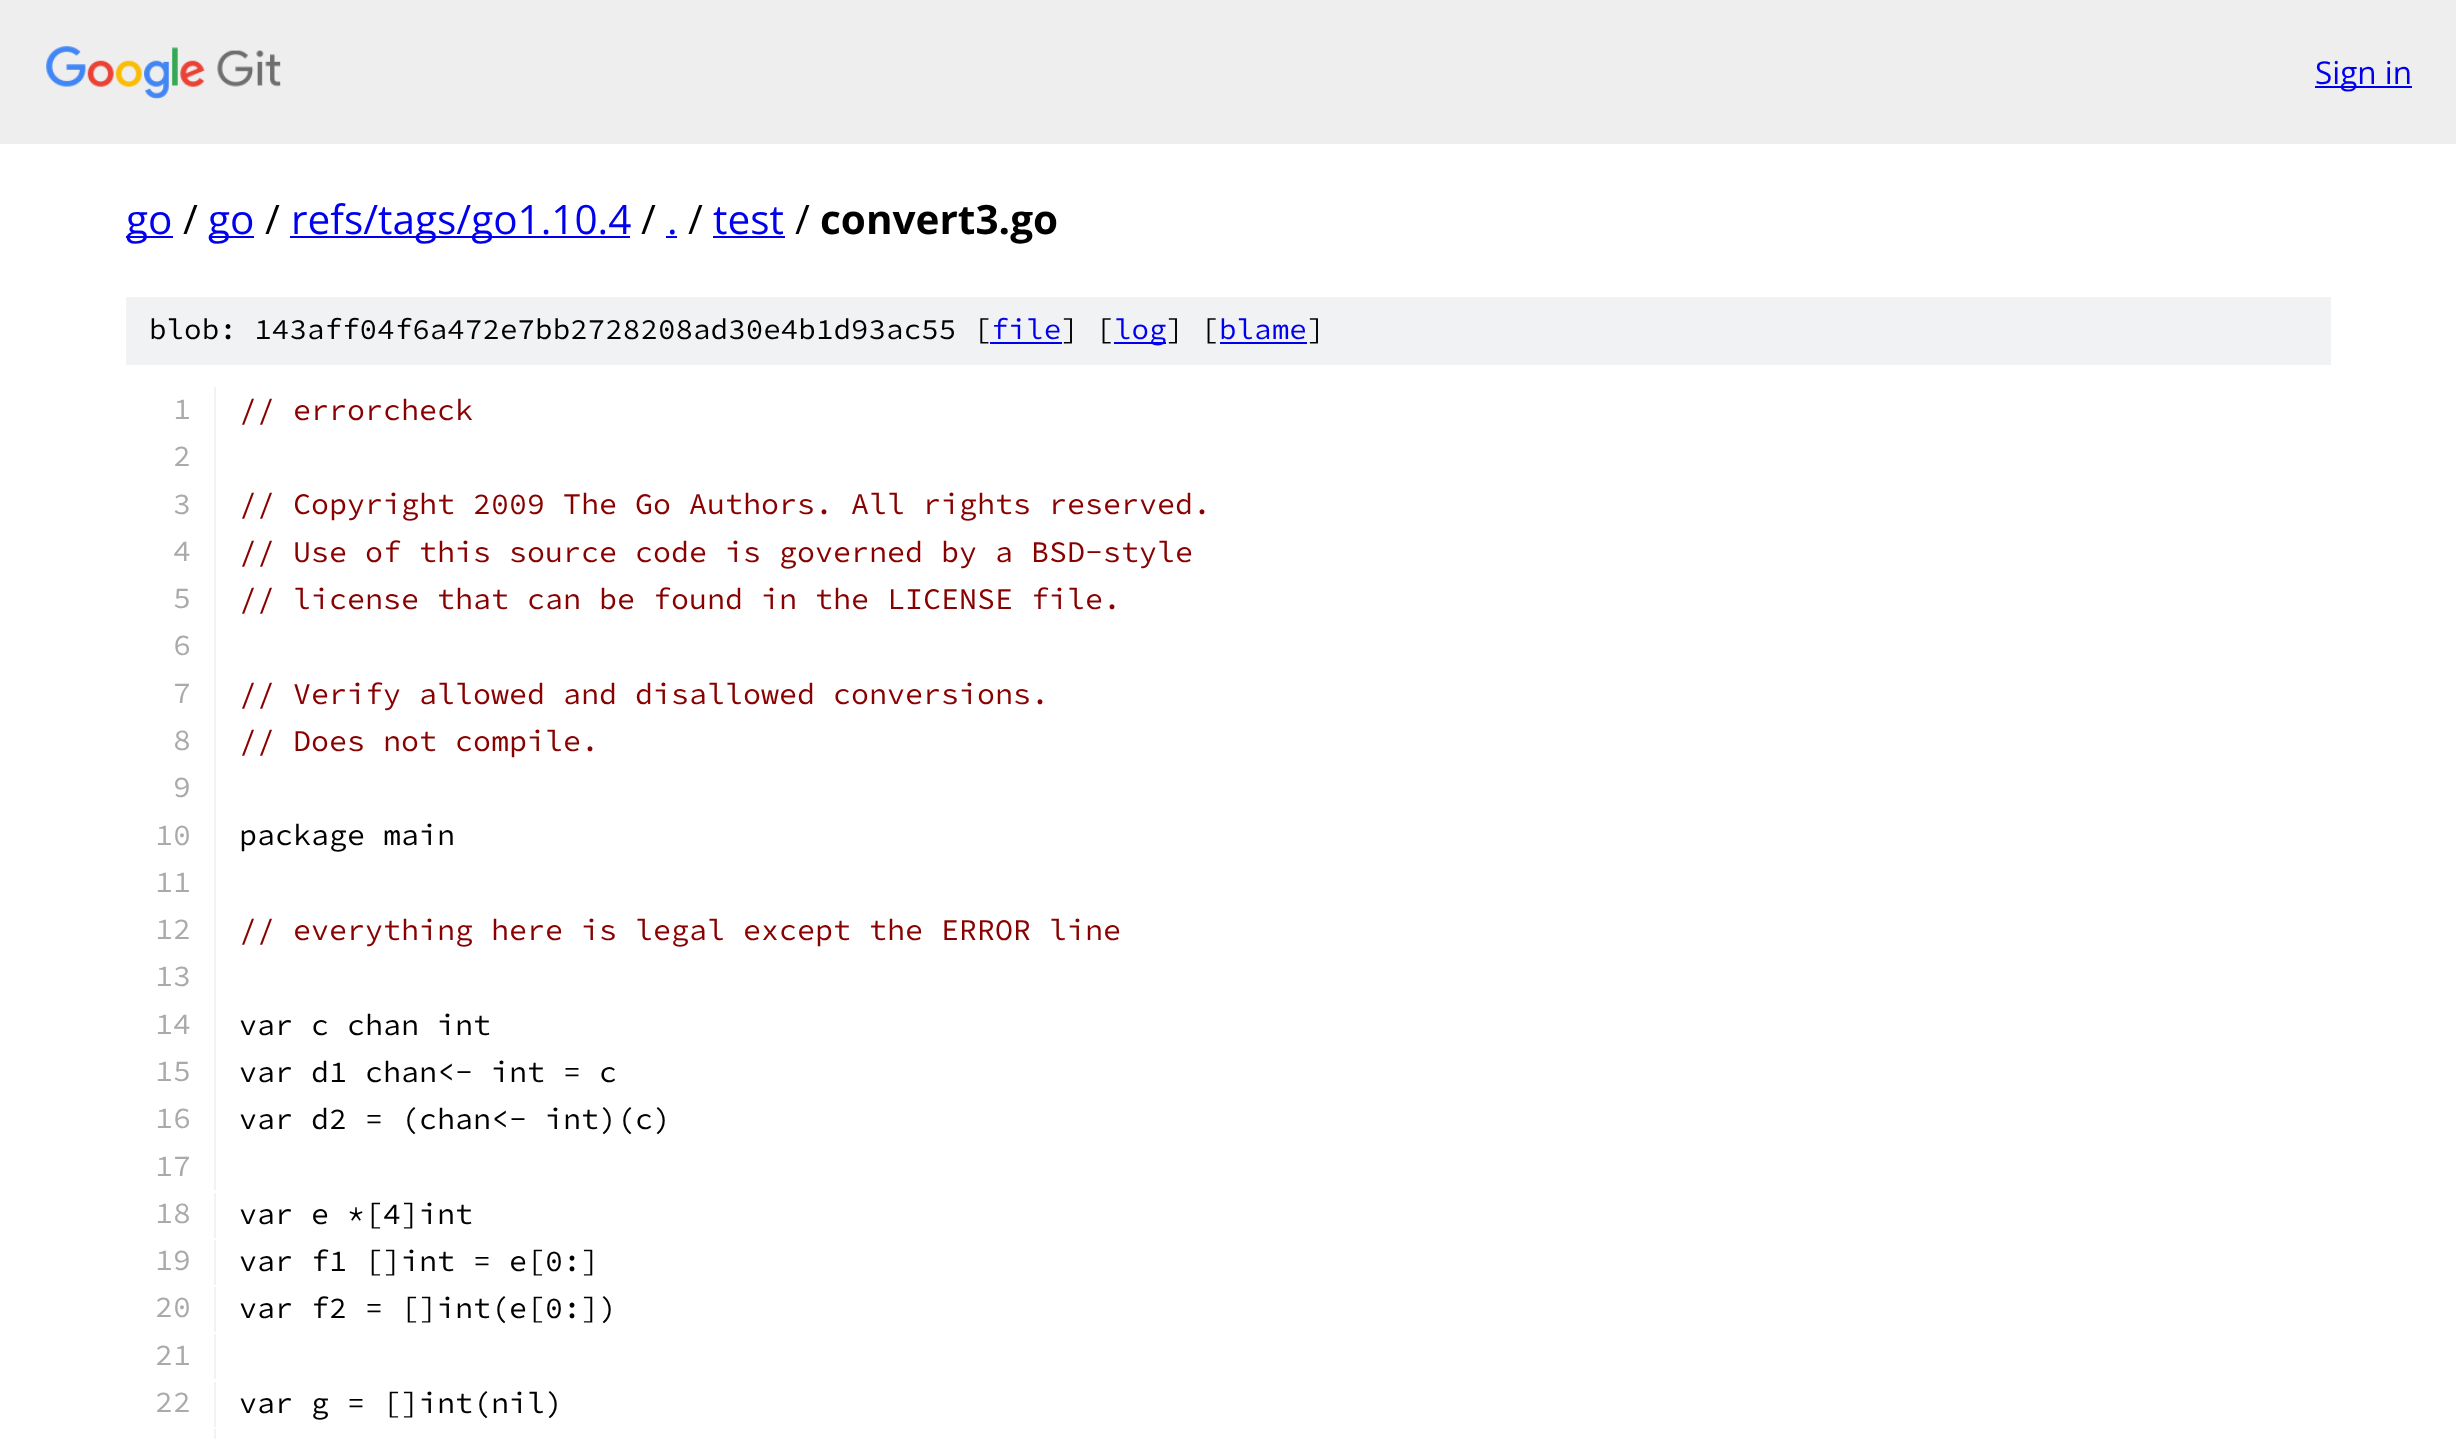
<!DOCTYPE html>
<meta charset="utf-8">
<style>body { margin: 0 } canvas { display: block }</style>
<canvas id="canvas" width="2456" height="1439"></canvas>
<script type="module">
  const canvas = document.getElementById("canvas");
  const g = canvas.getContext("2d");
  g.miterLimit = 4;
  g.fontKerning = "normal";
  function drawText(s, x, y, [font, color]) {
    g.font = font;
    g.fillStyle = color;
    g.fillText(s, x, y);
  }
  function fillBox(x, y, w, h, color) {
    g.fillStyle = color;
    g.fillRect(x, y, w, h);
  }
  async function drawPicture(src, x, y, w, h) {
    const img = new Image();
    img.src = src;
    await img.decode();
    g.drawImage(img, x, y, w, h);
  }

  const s1 = ["31.5px Open Sans", "#0000EE"];
  const s2 = ["40.5px Open Sans", "#0000EE"];
  const s3 = ["40.5px Open Sans", "#000000"];
  const s4 = ["bold 40.5px Open Sans", "#000000"];
  const s5 = ["200 29.25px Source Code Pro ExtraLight", "#000000"];
  const s6 = ["200 29.25px Source Code Pro ExtraLight", "#0000EE"];
  const s7 = ["200 30px Source Code Pro ExtraLight", "#AAAAAA"];
  const s8 = ["200 30px Source Code Pro ExtraLight", "#880000"];
  const s9 = ["200 30px Source Code Pro ExtraLight", "#000000"];

  fillBox(0, 0, 2456, 1439, "#FFFFFF");
  fillBox(0, 0, 2456, 144, "#EEEEEE");
  await drawPicture("pic1.png", 46, 46, 235, 53);
  fillBox(2315, 86, 97, 2, "#0000EE");
  drawText("Sign in", 2315, 84, s1);
  fillBox(126, 236, 47, 2, "#0000EE");
  drawText("go", 126, 234, s2);
  drawText("/", 183, 234, s3);
  fillBox(209, 236, 45, 2, "#0000EE");
  drawText("go", 208, 234, s2);
  drawText("/", 265, 234, s3);
  fillBox(290, 236, 340, 2, "#0000EE");
  drawText("refs/tags/go1.10.4", 291, 234, s2);
  drawText("/", 641, 234, s3);
  drawText(".", 667, 234, s2);
  fillBox(666, 236, 11, 2, "#0000EE");
  drawText("/", 688, 234, s3);
  drawText("test", 713, 234, s2);
  fillBox(713, 236, 72, 2, "#0000EE");
  drawText("/", 795, 234, s3);
  drawText("convert3.go", 820, 234, s4);
  fillBox(126, 297, 2205, 68, "#F1F2F3");
  drawText("blob: 143aff04f6a472e7bb2728208ad30e4b1d93ac55 [", 149, 339, s5);
  drawText("file", 991, 339, s6);
  fillBox(990, 342, 72, 2, "#0000EE");
  drawText("] [", 1061, 339, s5);
  fillBox(1114, 342, 52, 2, "#0000EE");
  drawText("log", 1114, 339, s6);
  drawText("] [", 1166, 339, s5);
  drawText("blame", 1219, 339, s6);
  fillBox(1220, 342, 87, 2, "#0000EE");
  drawText("]", 1307, 339, s5);
  fillBox(214, 387, 2, 803, "#F1F2F3");
  drawText("1", 173, 419, s7);
  drawText("// errorcheck", 239, 420, s8);
  drawText("2", 173, 466, s7);
  drawText("3", 173, 514, s7);
  drawText("// Copyright 2009 The Go Authors. All rights reserved.", 239, 514, s8);
  drawText("4", 173, 561, s7);
  drawText("// Use of this source code is governed by a BSD-style", 239, 562, s8);
  drawText("5", 173, 608, s7);
  drawText("// license that can be found in the LICENSE file.", 239, 609, s8);
  drawText("6", 173, 655, s7);
  drawText("7", 173, 703, s7);
  drawText("// Verify allowed and disallowed conversions.", 239, 704, s8);
  drawText("8", 173, 750, s7);
  drawText("// Does not compile.", 239, 751, s8);
  drawText("9", 173, 797, s7);
  drawText("10", 155, 845, s7);
  drawText("package main", 239, 845, s9);
  drawText("11", 155, 892, s7);
  drawText("12", 155, 939, s7);
  drawText("// everything here is legal except the ERROR line", 239, 940, s8);
  drawText("13", 155, 986, s7);
  drawText("14", 155, 1034, s7);
  drawText("var c chan int", 239, 1035, s9);
  drawText("15", 155, 1081, s7);
  drawText("var d1 chan<- int = c", 239, 1082, s9);
  drawText("16", 155, 1128, s7);
  drawText("var d2 = (chan<- int)(c)", 239, 1129, s9);
  drawText("17", 155, 1176, s7);
  fillBox(214, 1193, 2, 45, "#F1F2F3");
  drawText("18", 155, 1223, s7);
  drawText("var e *[4]int", 239, 1224, s9);
  fillBox(214, 1240, 2, 45, "#F1F2F3");
  drawText("19", 155, 1270, s7);
  drawText("var f1 []int = e[0:]", 239, 1271, s9);
  fillBox(214, 1287, 2, 45, "#F1F2F3");
  drawText("20", 155, 1317, s7);
  drawText("var f2 = []int(e[0:])", 239, 1318, s9);
  fillBox(214, 1334, 2, 45, "#F1F2F3");
  drawText("21", 155, 1365, s7);
  fillBox(214, 1382, 2, 45, "#F1F2F3");
  drawText("22", 155, 1412, s7);
  drawText("var g = []int(nil)", 239, 1413, s9);
  fillBox(214, 1429, 2, 10, "#F1F2F3");
</script>
